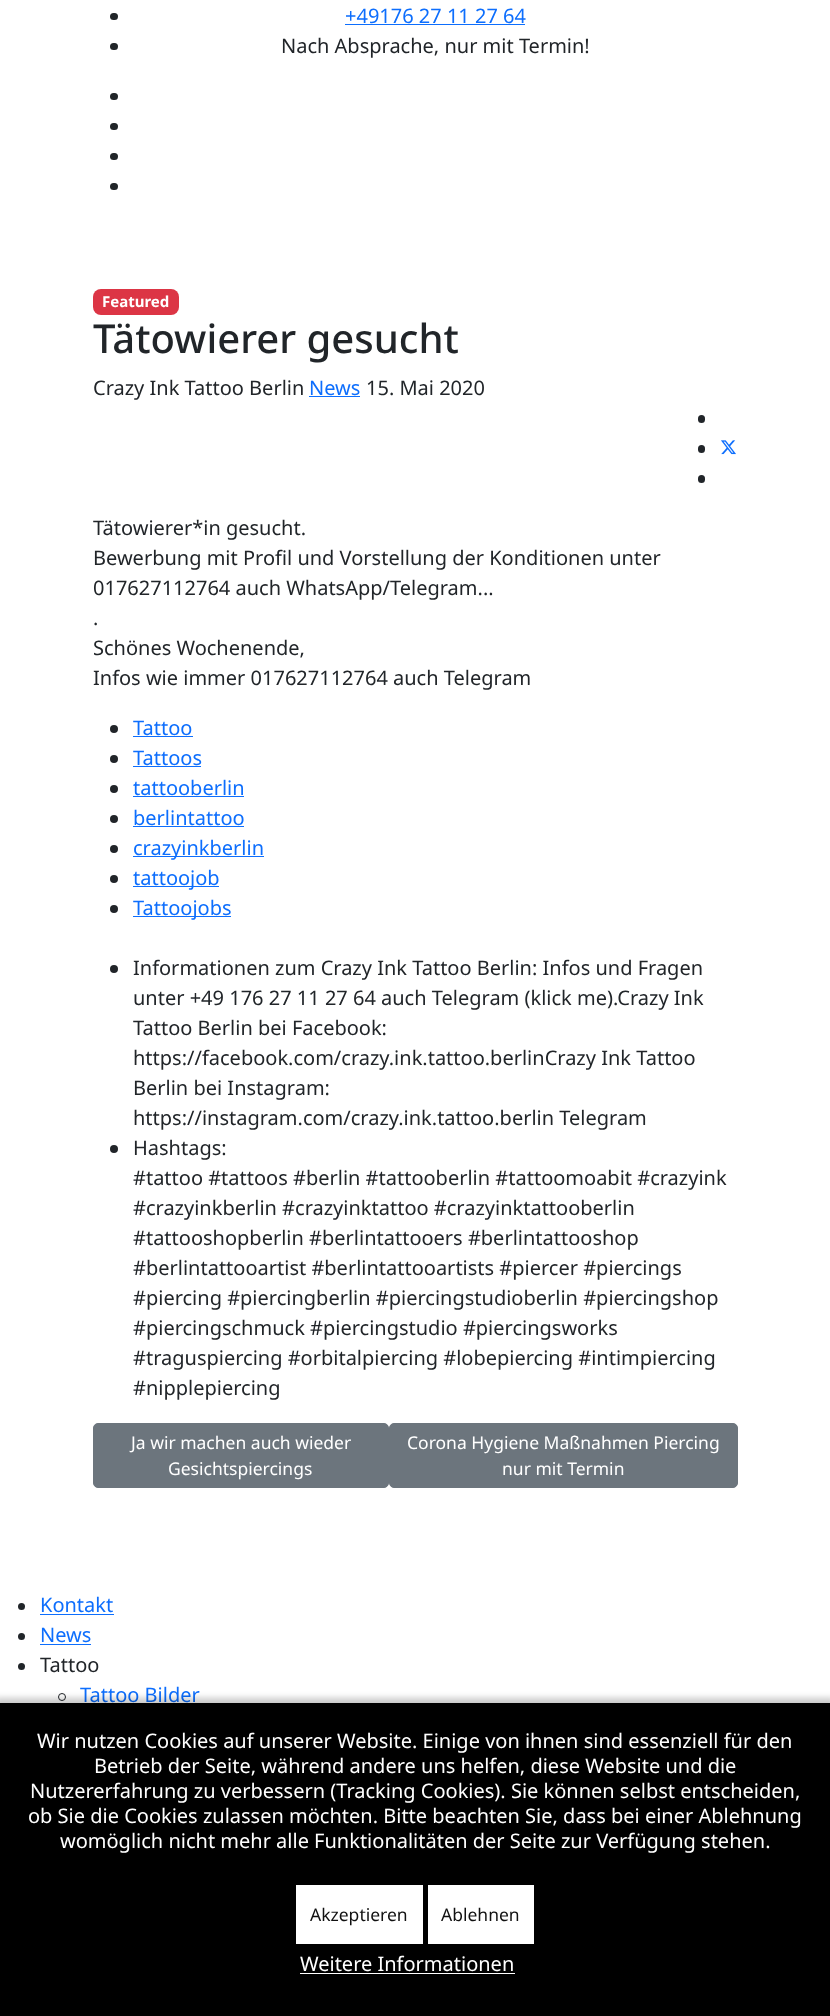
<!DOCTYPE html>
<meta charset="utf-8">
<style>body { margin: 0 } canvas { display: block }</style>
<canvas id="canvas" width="830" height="2016"></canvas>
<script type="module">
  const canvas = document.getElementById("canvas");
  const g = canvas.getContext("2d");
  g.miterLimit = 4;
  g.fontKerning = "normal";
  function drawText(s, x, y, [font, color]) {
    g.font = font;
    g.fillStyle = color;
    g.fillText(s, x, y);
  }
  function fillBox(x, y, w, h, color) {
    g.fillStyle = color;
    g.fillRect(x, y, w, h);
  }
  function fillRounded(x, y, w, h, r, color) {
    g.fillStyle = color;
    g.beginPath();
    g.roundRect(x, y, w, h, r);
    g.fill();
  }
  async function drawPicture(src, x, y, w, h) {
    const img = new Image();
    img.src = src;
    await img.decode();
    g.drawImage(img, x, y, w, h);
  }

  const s1 = ["20px Noto Sans", "#0D6EFD"];
  const s2 = ["20px Noto Sans", "#212529"];
  const s3 = ["bold 15px Noto Sans", "#FFFFFF"];
  const s4 = ["500 40px Noto Sans", "#212529"];
  const s5 = ["17.5px Noto Sans", "#FFFFFF"];
  const s6 = ["20px Noto Sans", "#FFFFFF"];
  const s7 = ["17.5px Noto Sans", "#111111"];

  fillBox(0, 0, 830, 2016, "#FFFFFF");
  fillRounded(110, 13, 8, 7, 3.5, "#212529");
  drawText("+49176 27 11 27 64", 345, 23, s1);
  fillBox(345, 24, 180, 1, "#0D6EFD");
  fillRounded(110, 43, 8, 7, 3.5, "#212529");
  drawText("Nach Absprache, nur mit Termin!", 281, 53, s2);
  fillRounded(110, 93, 8, 7, 3.5, "#212529");
  fillRounded(110, 123, 8, 7, 3.5, "#212529");
  fillRounded(110, 153, 8, 7, 3.5, "#212529");
  fillRounded(110, 183, 8, 7, 3.5, "#212529");
  fillRounded(93, 289, 86, 26, 8, "#DC3545");
  drawText("Featured", 102, 307, s3);
  drawText("Tätowierer gesucht", 93, 353, s4);
  drawText("Crazy Ink Tattoo Berlin", 93, 395, s2);
  drawText("News", 309, 395, s1);
  fillBox(309, 396, 51, 1, "#0D6EFD");
  drawText("15. Mai 2020", 366, 395, s2);
  fillRounded(698, 415, 7, 8, 3.5, "#212529");
  fillRounded(698, 445, 7, 8, 3.5, "#212529");
  await drawPicture("pic1.png", 721, 440, 15, 15);
  fillRounded(698, 475, 7, 8, 3.5, "#212529");
  drawText("Tätowierer*in gesucht.", 93, 535, s2);
  drawText("Bewerbung mit Profil und Vorstellung der Konditionen unter", 93, 565, s2);
  drawText("017627112764 auch WhatsApp/Telegram...", 93, 595, s2);
  drawText(".", 93, 625, s2);
  drawText("Schönes Wochenende,", 93, 655, s2);
  drawText("Infos wie immer 017627112764 auch Telegram", 93, 685, s2);
  g.beginPath();
  g.arc(114, 729, 4, 0, Math.PI * 2);
  g.fill();
  drawText("Tattoo", 133, 735, s1);
  fillBox(133, 736, 60, 1, "#0D6EFD");
  g.fillStyle = "#212529";
  g.beginPath();
  g.arc(114, 759, 4, 0, Math.PI * 2);
  g.fill();
  drawText("Tattoos", 133, 765, s1);
  fillBox(133, 766, 68, 1, "#0D6EFD");
  g.fillStyle = "#212529";
  g.beginPath();
  g.arc(114, 789, 4, 0, Math.PI * 2);
  g.fill();
  drawText("tattooberlin", 133, 795, s1);
  fillBox(133, 796, 111, 1, "#0D6EFD");
  g.fillStyle = "#212529";
  g.beginPath();
  g.arc(114, 819, 4, 0, Math.PI * 2);
  g.fill();
  drawText("berlintattoo", 133, 825, s1);
  fillBox(133, 826, 111, 1, "#0D6EFD");
  g.fillStyle = "#212529";
  g.beginPath();
  g.arc(114, 849, 4, 0, Math.PI * 2);
  g.fill();
  fillBox(133, 856, 131, 1, "#0D6EFD");
  drawText("crazyinkberlin", 133, 855, s1);
  g.fillStyle = "#212529";
  g.beginPath();
  g.arc(114, 879, 4, 0, Math.PI * 2);
  g.fill();
  fillBox(133, 886, 86, 1, "#0D6EFD");
  drawText("tattoojob", 133, 885, s1);
  g.fillStyle = "#212529";
  g.beginPath();
  g.arc(114, 909, 4, 0, Math.PI * 2);
  g.fill();
  fillBox(133, 916, 98, 1, "#0D6EFD");
  drawText("Tattoojobs", 133, 915, s1);
  g.fillStyle = "#212529";
  g.beginPath();
  g.arc(114, 969, 4, 0, Math.PI * 2);
  g.fill();
  drawText("Informationen zum Crazy Ink Tattoo Berlin: Infos und Fragen", 133, 975, s2);
  drawText("unter +49 176 27 11 27 64 auch Telegram (klick me).Crazy Ink", 133, 1005, s2);
  drawText("Tattoo Berlin bei Facebook:", 133, 1035, s2);
  drawText("https://facebook.com/crazy.ink.tattoo.berlinCrazy Ink Tattoo", 133, 1065, s2);
  drawText("Berlin bei Instagram:", 133, 1095, s2);
  drawText("https://instagram.com/crazy.ink.tattoo.berlin Telegram", 133, 1125, s2);
  g.beginPath();
  g.arc(114, 1149, 4, 0, Math.PI * 2);
  g.fill();
  drawText("Hashtags:", 133, 1155, s2);
  drawText("#tattoo #tattoos #berlin #tattooberlin #tattoomoabit #crazyink", 133, 1185, s2);
  drawText("#crazyinkberlin #crazyinktattoo #crazyinktattooberlin", 133, 1215, s2);
  drawText("#tattooshopberlin #berlintattooers #berlintattooshop", 133, 1245, s2);
  drawText("#berlintattooartist #berlintattooartists #piercer #piercings", 133, 1275, s2);
  drawText("#piercing #piercingberlin #piercingstudioberlin #piercingshop", 133, 1305, s2);
  drawText("#piercingschmuck #piercingstudio #piercingsworks", 133, 1335, s2);
  drawText("#traguspiercing #orbitalpiercing #lobepiercing #intimpiercing", 133, 1365, s2);
  drawText("#nipplepiercing", 133, 1395, s2);
  g.fillStyle = "#6C757D";
  g.beginPath();
  g.roundRect(93.5, 1423.5, 295, 64, 4.5);
  g.fill();
  g.strokeStyle = "#6C757D";
  g.stroke();
  drawText("Ja wir machen auch wieder", 131, 1449, s5);
  drawText("Gesichtspiercings", 168, 1475, s5);
  g.fillStyle = "#6C757D";
  g.beginPath();
  g.roundRect(389.5, 1423.5, 348, 64, 4.5);
  g.fill();
  g.stroke();
  drawText("Corona Hygiene Maßnahmen Piercing", 407, 1449, s5);
  drawText("nur mit Termin", 502, 1475, s5);
  g.fillStyle = "#212529";
  g.beginPath();
  g.arc(21.5, 1606.5, 3.5, 0, Math.PI * 2);
  g.fill();
  drawText("Kontakt", 40, 1612, s1);
  fillBox(40, 1614, 74, 1, "#0D6EFD");
  g.fillStyle = "#212529";
  g.beginPath();
  g.arc(21.5, 1636.5, 3.5, 0, Math.PI * 2);
  g.fill();
  drawText("News", 40, 1642, s1);
  fillBox(40, 1644, 51, 1, "#0D6EFD");
  g.fillStyle = "#212529";
  g.beginPath();
  g.arc(21.5, 1666.5, 3.5, 0, Math.PI * 2);
  g.fill();
  drawText("Tattoo", 40, 1672, s2);
  g.beginPath();
  g.arc(62, 1697, 3.5, 0, Math.PI * 2);
  g.strokeStyle = "#212529";
  g.stroke();
  drawText("Tattoo Bilder", 80, 1702, s1);
  g.fillStyle = "rgba(0, 0, 0, 0.21)";
  g.filter = "blur(3px)";
  g.beginPath();
  g.rect(-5, 1698, 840, 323);
  g.fill();
  g.filter = "none";
  fillBox(0, 1703, 830, 313, "#000000");
  drawText("Wir nutzen Cookies auf unserer Website. Einige von ihnen sind essenziell für den", 37, 1748, s6);
  drawText("Betrieb der Seite, während andere uns helfen, diese Website und die", 94, 1773, s6);
  drawText("Nutzererfahrung zu verbessern (Tracking Cookies). Sie können selbst entscheiden,", 30, 1798, s6);
  drawText("ob Sie die Cookies zulassen möchten. Bitte beachten Sie, dass bei einer Ablehnung", 28, 1823, s6);
  drawText("womöglich nicht mehr alle Funktionalitäten der Seite zur Verfügung stehen.", 60, 1848, s6);
  fillBox(296, 1885, 127, 59, "#FFFFFF");
  drawText("Akzeptieren", 310, 1921, s7);
  fillBox(428, 1885, 106, 59, "#FFFFFF");
  drawText("Ablehnen", 441, 1921, s7);
  drawText("Weitere Informationen", 300, 1971, s6);
  fillBox(300, 1973, 215, 1, "#FFFFFF");
</script>
